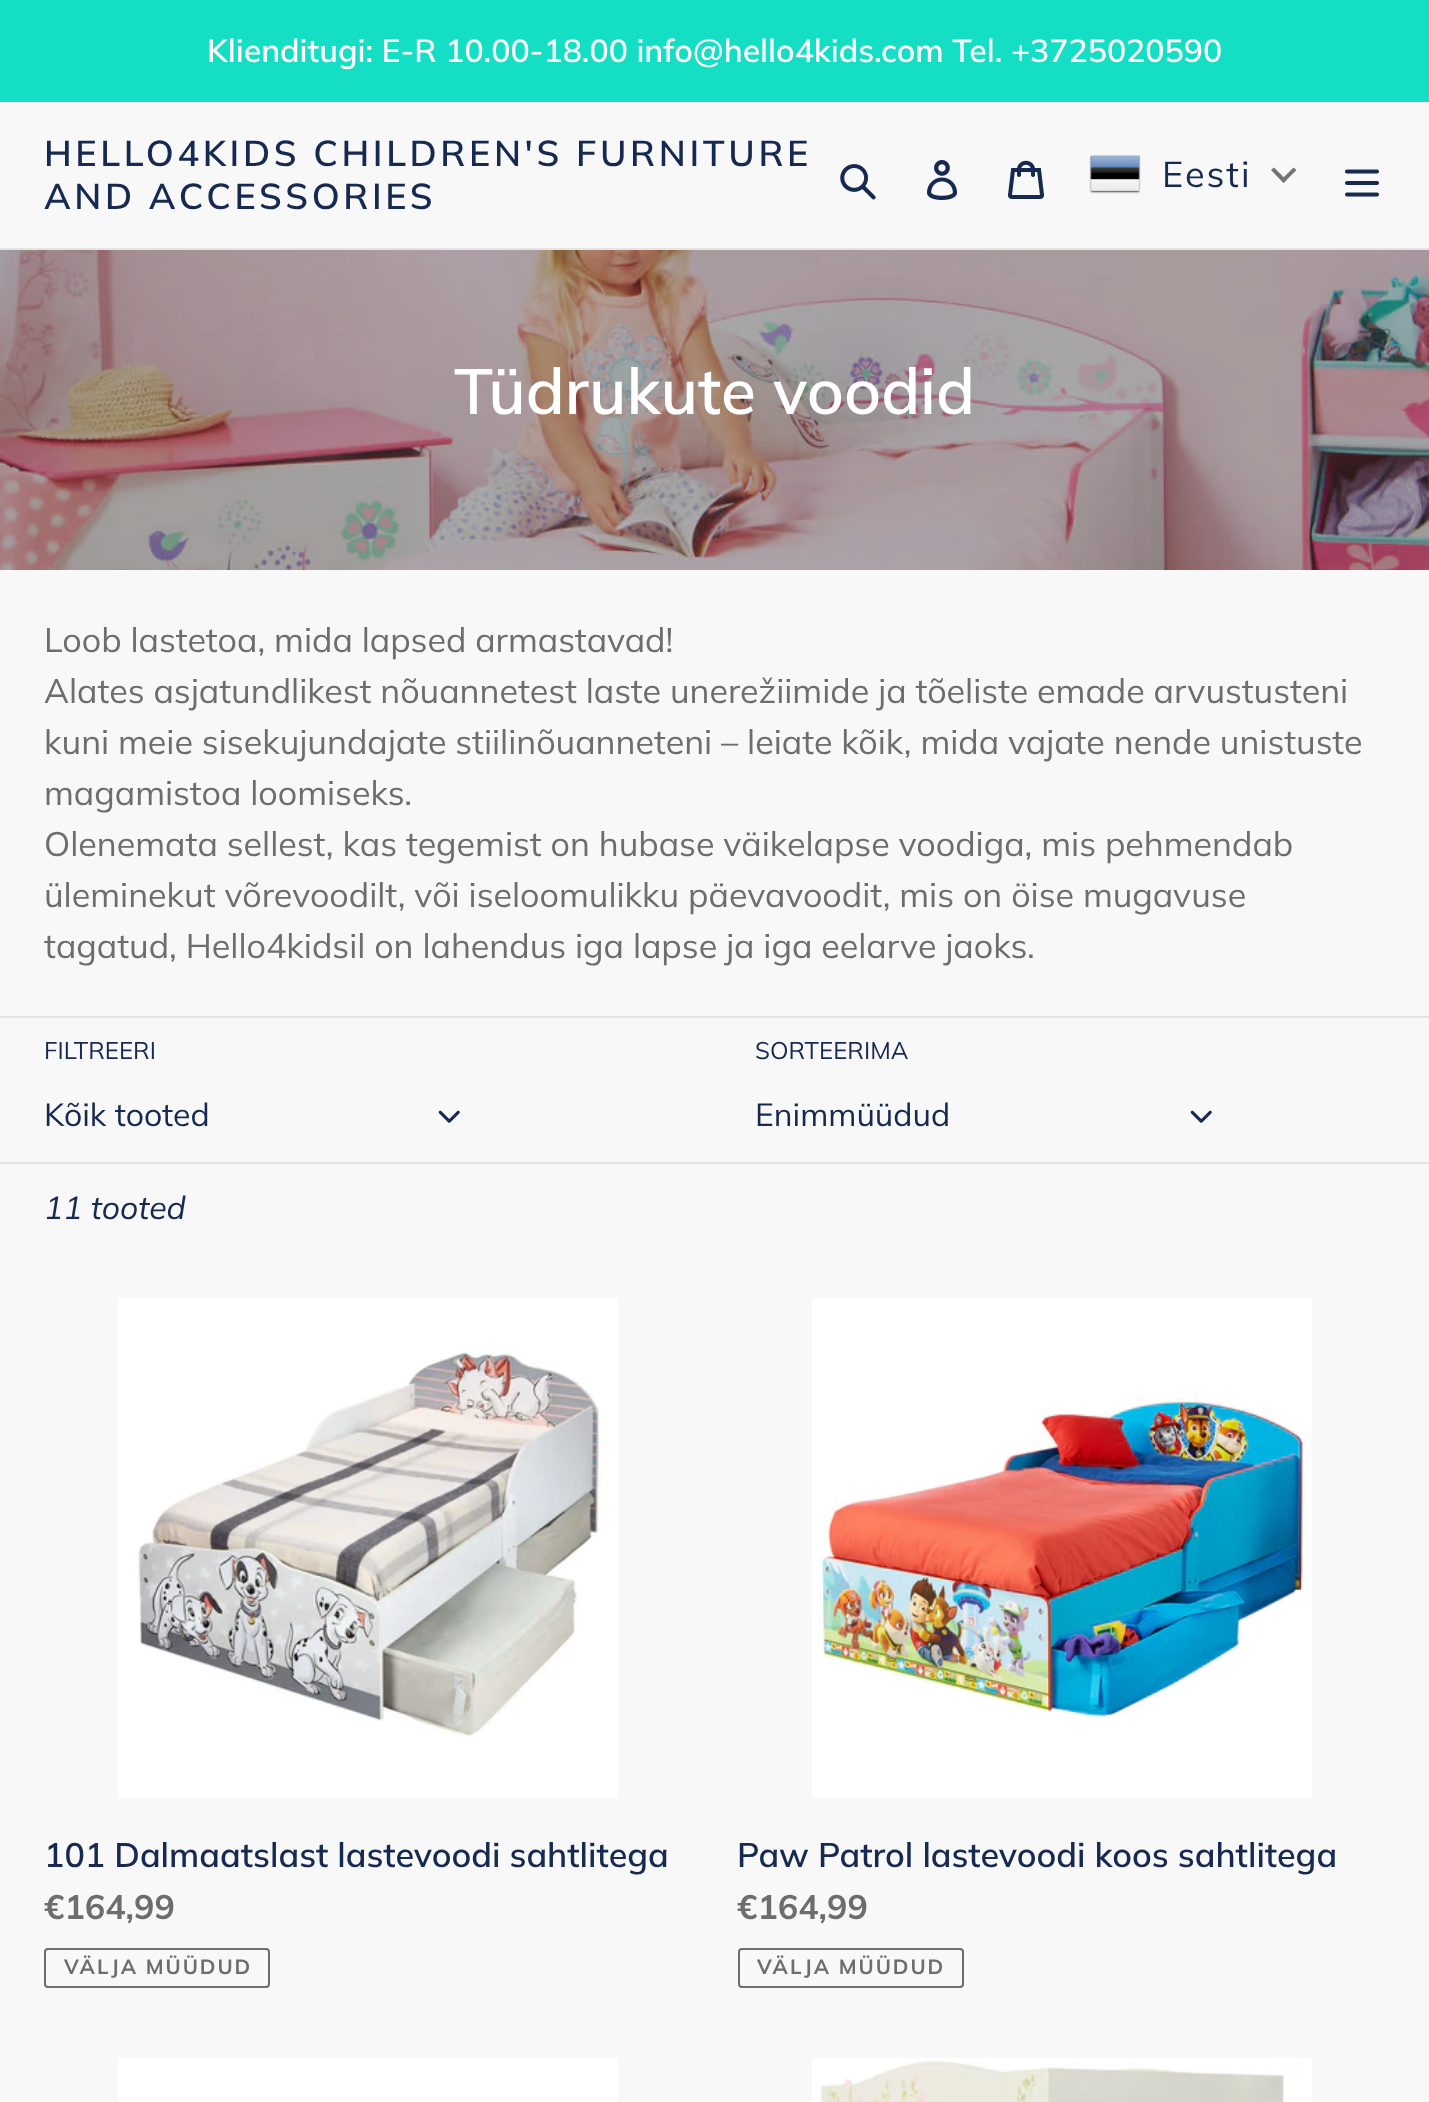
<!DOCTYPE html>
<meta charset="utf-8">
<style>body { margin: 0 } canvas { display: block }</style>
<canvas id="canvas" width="1429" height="2102"></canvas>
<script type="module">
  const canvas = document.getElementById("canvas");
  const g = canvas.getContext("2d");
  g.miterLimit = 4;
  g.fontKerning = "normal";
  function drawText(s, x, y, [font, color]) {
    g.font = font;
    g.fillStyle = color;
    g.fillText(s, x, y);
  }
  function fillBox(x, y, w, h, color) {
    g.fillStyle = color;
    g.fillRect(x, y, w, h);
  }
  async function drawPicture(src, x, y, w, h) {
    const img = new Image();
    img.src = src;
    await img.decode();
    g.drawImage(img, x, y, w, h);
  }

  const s1 = ["600 32px Muli", "#FFFFFF"];
  const s2 = ["600 36px Muli", "#162950"];
  const s3 = ["36px Muli", "#162950"];
  const s4 = ["600 64px Muli", "#FFFFFF"];
  const s5 = ["34px Muli", "#6D6D6D"];
  const s6 = ["24px Muli", "#162950"];
  const s7 = ["32px Muli", "#162950"];
  const s8 = ["italic 32px Muli", "#162950"];
  const s9 = ["600 34px Muli", "#162950"];
  const s10 = ["bold 34px Muli", "#6D6D6D"];
  const s11 = ["bold 20.5px Muli", "#6D6D6D"];

  fillBox(0, 0, 1429, 2102, "#F8F8F8");
  fillBox(0, 0, 1429, 102, "#14DFC4");
  drawText("Klienditugi: E-R 10.00-18.00 info@hello4kids.com Tel. +3725020590", 207, 62, s1);
  fillBox(0, 248, 1429, 2, "#E4E4E4");
  g.letterSpacing = "3.6px";
  drawText("HELLO4KIDS CHILDREN'S FURNITURE", 44, 166, s2);
  drawText("AND ACCESSORIES", 44, 209, s2);
  await drawPicture("pic1.png", 840, 164, 36, 36);
  await drawPicture("pic2.png", 927, 160, 31, 40);
  await drawPicture("pic3.png", 1008, 160, 36, 39);
  await drawPicture("pic4.png", 1089, 155, 52, 39);
  g.letterSpacing = "2px";
  drawText("Eesti", 1162, 187, s3);
  g.fillStyle = "#747474";
  g.beginPath();
  g.moveTo(1293.5, 167.5);
  g.lineTo(1296.5, 170);
  g.lineTo(1283.5, 183);
  g.lineTo(1281, 180);
  g.closePath();
  g.fill();
  g.beginPath();
  g.moveTo(1274, 167.5);
  g.lineTo(1286.5, 180);
  g.lineTo(1283.5, 183);
  g.lineTo(1271, 170);
  g.closePath();
  g.fill();
  await drawPicture("pic5.png", 1345, 169, 34, 28);
  await drawPicture("pic6.png", 0, 250, 1429, 320);
  g.letterSpacing = "0px";
  drawText("Tüdrukute voodid", 454, 414, s4);
  drawText("Loob lastetoa, mida lapsed armastavad!", 44, 652, s5);
  drawText("Alates asjatundlikest nõuannetest laste unerežiimide ja tõeliste emade arvustusteni", 44, 703, s5);
  drawText("kuni meie sisekujundajate stiilinõuanneteni – leiate kõik, mida vajate nende unistuste", 44, 754, s5);
  drawText("magamistoa loomiseks.", 44, 805, s5);
  drawText("Olenemata sellest, kas tegemist on hubase väikelapse voodiga, mis pehmendab", 44, 856, s5);
  drawText("üleminekut võrevoodilt, või iseloomulikku päevavoodit, mis on öise mugavuse", 44, 907, s5);
  drawText("tagatud, Hello4kidsil on lahendus iga lapse ja iga eelarve jaoks.", 44, 958, s5);
  fillBox(0, 1016, 1429, 2, "#E4E4E4");
  drawText("FILTREERI", 44, 1059, s6);
  drawText("Kõik tooted", 44, 1126, s7);
  await drawPicture("pic7.png", 438, 1110, 22, 13);
  drawText("SORTEERIMA", 755, 1059, s6);
  drawText("Enimmüüdud", 755, 1126, s7);
  await drawPicture("pic7.png", 1190, 1110, 22, 13);
  fillBox(0, 1162, 1429, 2, "#E4E4E4");
  drawText("11 tooted", 44, 1219, s8);
  await drawPicture("pic8.png", 118, 1298, 500, 500);
  drawText("101 Dalmaatslast lastevoodi sahtlitega", 44, 1867, s9);
  drawText("€164,99", 44, 1919, s10);
  g.beginPath();
  g.roundRect(45, 1949, 224, 38, 3);
  g.strokeStyle = "#6D6D6D";
  g.lineWidth = 2;
  g.stroke();
  g.letterSpacing = "2px";
  drawText("VÄLJA MÜÜDUD", 64, 1974, s11);
  await drawPicture("pic9.png", 812, 1298, 500, 500);
  g.letterSpacing = "0px";
  drawText("Paw Patrol lastevoodi koos sahtlitega", 737, 1867, s9);
  drawText("€164,99", 737, 1919, s10);
  g.beginPath();
  g.roundRect(739, 1949, 224, 38, 3);
  g.stroke();
  g.letterSpacing = "2px";
  drawText("VÄLJA MÜÜDUD", 757, 1974, s11);
  fillBox(118, 2058, 500, 44, "#FFFFFF");
  await drawPicture("pic10.png", 812, 2058, 500, 44);
</script>
